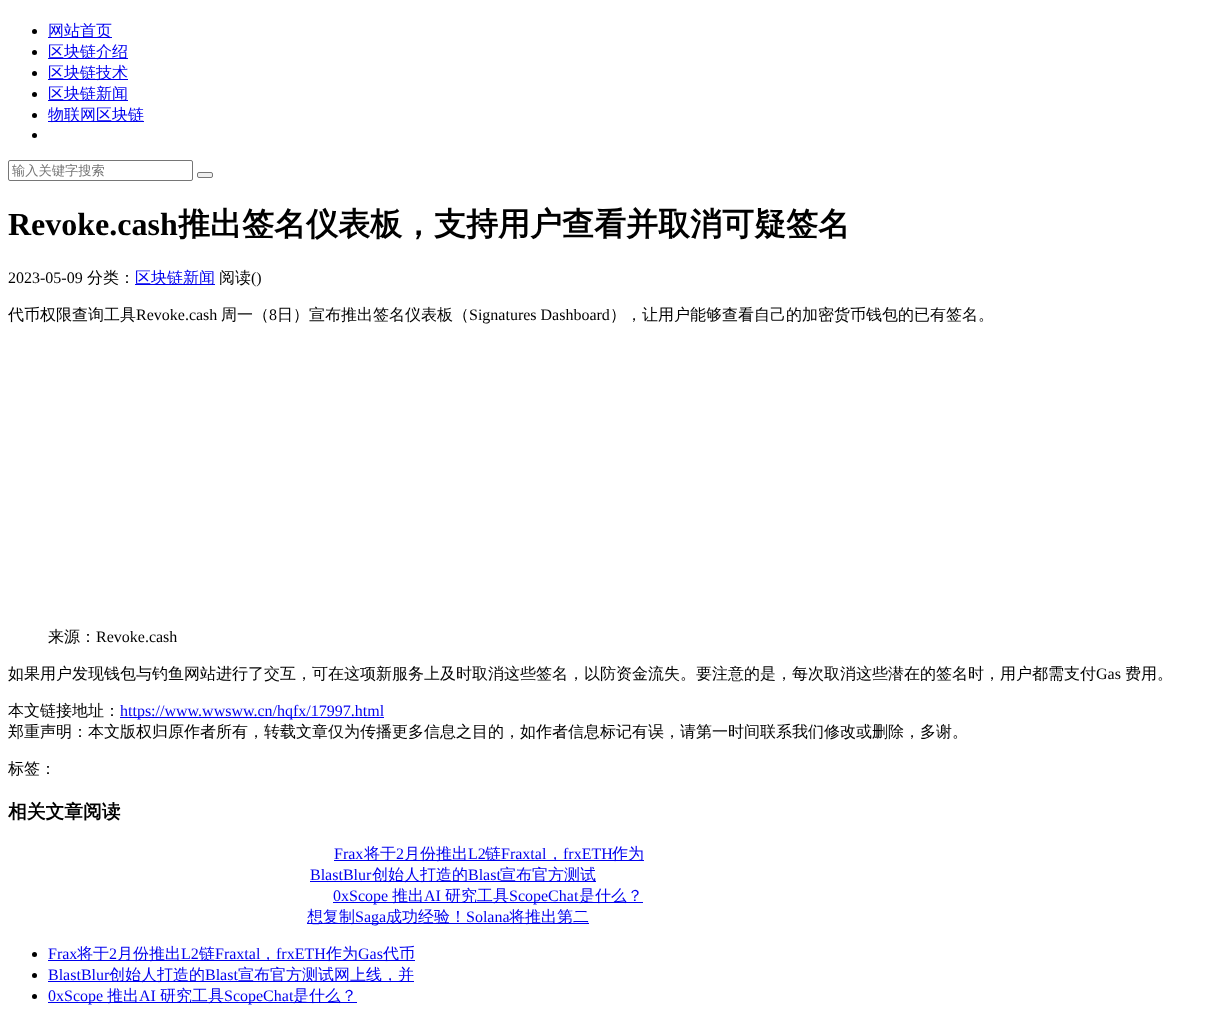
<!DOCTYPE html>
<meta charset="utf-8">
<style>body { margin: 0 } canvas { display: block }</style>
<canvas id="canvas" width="1221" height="1012"></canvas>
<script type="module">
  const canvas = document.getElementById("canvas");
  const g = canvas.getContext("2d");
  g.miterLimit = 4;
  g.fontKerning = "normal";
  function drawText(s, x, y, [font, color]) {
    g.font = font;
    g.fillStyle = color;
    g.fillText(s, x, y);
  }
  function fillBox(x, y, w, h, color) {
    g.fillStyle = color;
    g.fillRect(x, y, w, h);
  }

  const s1 = ["500 16px WenQuanYi Zen Hei", "#0000EE"];
  const s2 = ["500 13.25px WenQuanYi Zen Hei", "#757575"];
  const s3 = ["bold 32px Liberation Serif", "#000000"];
  const s4 = ["bold 32px WenQuanYi Zen Hei", "#000000"];
  const s5 = ["16px Liberation Serif", "#000000"];
  const s6 = ["500 16px WenQuanYi Zen Hei", "#000000"];
  const s7 = ["16px Liberation Serif", "#0000EE"];
  const s8 = ["bold 18.75px WenQuanYi Zen Hei", "#000000"];

  fillBox(0, 0, 1221, 1012, "#FFFFFF");
  g.fillStyle = "#000000";
  g.beginPath();
  g.arc(34.5, 31.5, 2.5, 0, Math.PI * 2);
  g.fill();
  fillBox(48, 37, 64, 1, "#0000EE");
  drawText("网站首页", 48, 36, s1);
  g.fillStyle = "#000000";
  g.beginPath();
  g.arc(34.5, 52.5, 2.5, 0, Math.PI * 2);
  g.fill();
  fillBox(48, 58, 80, 1, "#0000EE");
  drawText("区块链介绍", 48, 57, s1);
  g.fillStyle = "#000000";
  g.beginPath();
  g.arc(34.5, 73.5, 2.5, 0, Math.PI * 2);
  g.fill();
  fillBox(48, 79, 80, 1, "#0000EE");
  drawText("区块链技术", 48, 78, s1);
  g.fillStyle = "#000000";
  g.beginPath();
  g.arc(34.5, 94.5, 2.5, 0, Math.PI * 2);
  g.fill();
  fillBox(48, 100, 80, 1, "#0000EE");
  drawText("区块链新闻", 48, 99, s1);
  g.fillStyle = "#000000";
  g.beginPath();
  g.arc(34.5, 115.5, 2.5, 0, Math.PI * 2);
  g.fill();
  fillBox(48, 121, 96, 1, "#0000EE");
  drawText("物联网区块链", 48, 120, s1);
  g.fillStyle = "#000000";
  g.beginPath();
  g.arc(34.5, 135.5, 2.5, 0, Math.PI * 2);
  g.fill();
  g.beginPath();
  g.roundRect(8.5, 160.5, 184, 20, 1.5);
  g.strokeStyle = "#767676";
  g.stroke();
  drawText("输入关键字搜索", 12, 175, s2);
  g.fillStyle = "#EFEFEF";
  g.beginPath();
  g.roundRect(197.5, 172.5, 15, 5, 1.5);
  g.fill();
  g.stroke();
  drawText("Revoke.cash", 8, 235, s3);
  drawText("推出签名仪表板，支持用户查看并取消可疑签名", 178, 235, s4);
  drawText("2023-05-09", 8, 283, s5);
  drawText("分类：", 87, 283, s6);
  fillBox(135, 284, 80, 1, "#0000EE");
  drawText("区块链新闻", 135, 283, s1);
  drawText("阅读", 219, 283, s6);
  drawText("()", 251, 283, s5);
  drawText("代币权限查询工具", 8, 320, s6);
  drawText("Revoke.cash", 136, 320, s5);
  drawText("周一（", 221, 320, s6);
  drawText("8", 269, 320, s5);
  drawText("日）宣布推出签名仪表板（", 277, 320, s6);
  drawText("Signatures Dashboard", 469, 320, s5);
  drawText("），让用户能够查看自己的加密货币钱包的已有签名。", 610, 320, s6);
  drawText("来源：", 48, 642, s6);
  drawText("Revoke.cash", 96, 642, s5);
  drawText("如果用户发现钱包与钓鱼网站进行了交互，可在这项新服务上及时取消这些签名，以防资金流失。要注意的是，每次取消这些潜在的签名时，用户都需支付", 8, 679, s6);
  drawText("Gas", 1096, 679, s5);
  drawText("费用。", 1125, 679, s6);
  drawText("本文链接地址：", 8, 716, s6);
  fillBox(120, 717, 264, 1, "#0000EE");
  drawText("https://www.wwsww.cn/hqfx/17997.html", 120, 716, s7);
  drawText("郑重声明：本文版权归原作者所有，转载文章仅为传播更多信息之目的，如作者信息标记有误，请第一时间联系我们修改或删除，多谢。", 8, 737, s6);
  drawText("标签：", 8, 774, s6);
  drawText("相关文章阅读", 8, 818, s8);
  drawText("Frax", 334, 859, s7);
  fillBox(334, 860, 310, 1, "#0000EE");
  drawText("将于", 364, 859, s1);
  drawText("2", 396, 859, s7);
  drawText("月份推出", 404, 859, s1);
  drawText("L2", 468, 859, s7);
  drawText("链", 485, 859, s1);
  drawText("Fraxtal", 501, 859, s7);
  drawText("frxETH", 563, 859, s7);
  drawText("作为", 612, 859, s1);
  drawText("，", 547, 859, s1);
  drawText("BlastBlur", 310, 880, s7);
  fillBox(310, 881, 286, 1, "#0000EE");
  drawText("创始人打造的", 372, 880, s1);
  drawText("Blast", 468, 880, s7);
  drawText("宣布官方测试", 500, 880, s1);
  fillBox(333, 902, 310, 1, "#0000EE");
  drawText("0xScope", 333, 901, s7);
  drawText("推出", 392, 901, s1);
  drawText("AI", 424, 901, s7);
  drawText("研究工具", 445, 901, s1);
  drawText("ScopeChat", 509, 901, s7);
  drawText("是什么？", 579, 901, s1);
  fillBox(307, 923, 282, 1, "#0000EE");
  drawText("想复制", 307, 922, s1);
  drawText("Saga", 355, 922, s7);
  drawText("成功经验！", 386, 922, s1);
  drawText("Solana", 466, 922, s7);
  drawText("将推出第二", 509, 922, s1);
  g.fillStyle = "#000000";
  g.beginPath();
  g.arc(34.5, 954.5, 2.5, 0, Math.PI * 2);
  g.fill();
  drawText("Frax", 48, 959, s7);
  fillBox(48, 960, 367, 1, "#0000EE");
  drawText("将于", 77, 959, s1);
  drawText("2", 109, 959, s7);
  drawText("月份推出", 117, 959, s1);
  drawText("L2", 181, 959, s7);
  drawText("链", 199, 959, s1);
  drawText("Fraxtal", 215, 959, s7);
  drawText("frxETH", 276, 959, s7);
  drawText("作为", 326, 959, s1);
  drawText("Gas", 358, 959, s7);
  drawText("代币", 383, 959, s1);
  drawText("，", 260, 959, s1);
  g.fillStyle = "#000000";
  g.beginPath();
  g.arc(34.5, 975.5, 2.5, 0, Math.PI * 2);
  g.fill();
  drawText("BlastBlur", 48, 980, s7);
  fillBox(48, 981, 366, 1, "#0000EE");
  drawText("创始人打造的", 109, 980, s1);
  drawText("Blast", 205, 980, s7);
  drawText("宣布官方测试网上线，并", 238, 980, s1);
  g.fillStyle = "#000000";
  g.beginPath();
  g.arc(34.5, 996.5, 2.5, 0, Math.PI * 2);
  g.fill();
  fillBox(48, 1002, 309, 1, "#0000EE");
  drawText("0xScope", 48, 1001, s7);
  drawText("推出", 107, 1001, s1);
  drawText("AI", 139, 1001, s7);
  drawText("研究工具", 160, 1001, s1);
  drawText("ScopeChat", 224, 1001, s7);
  drawText("是什么？", 293, 1001, s1);
</script>
